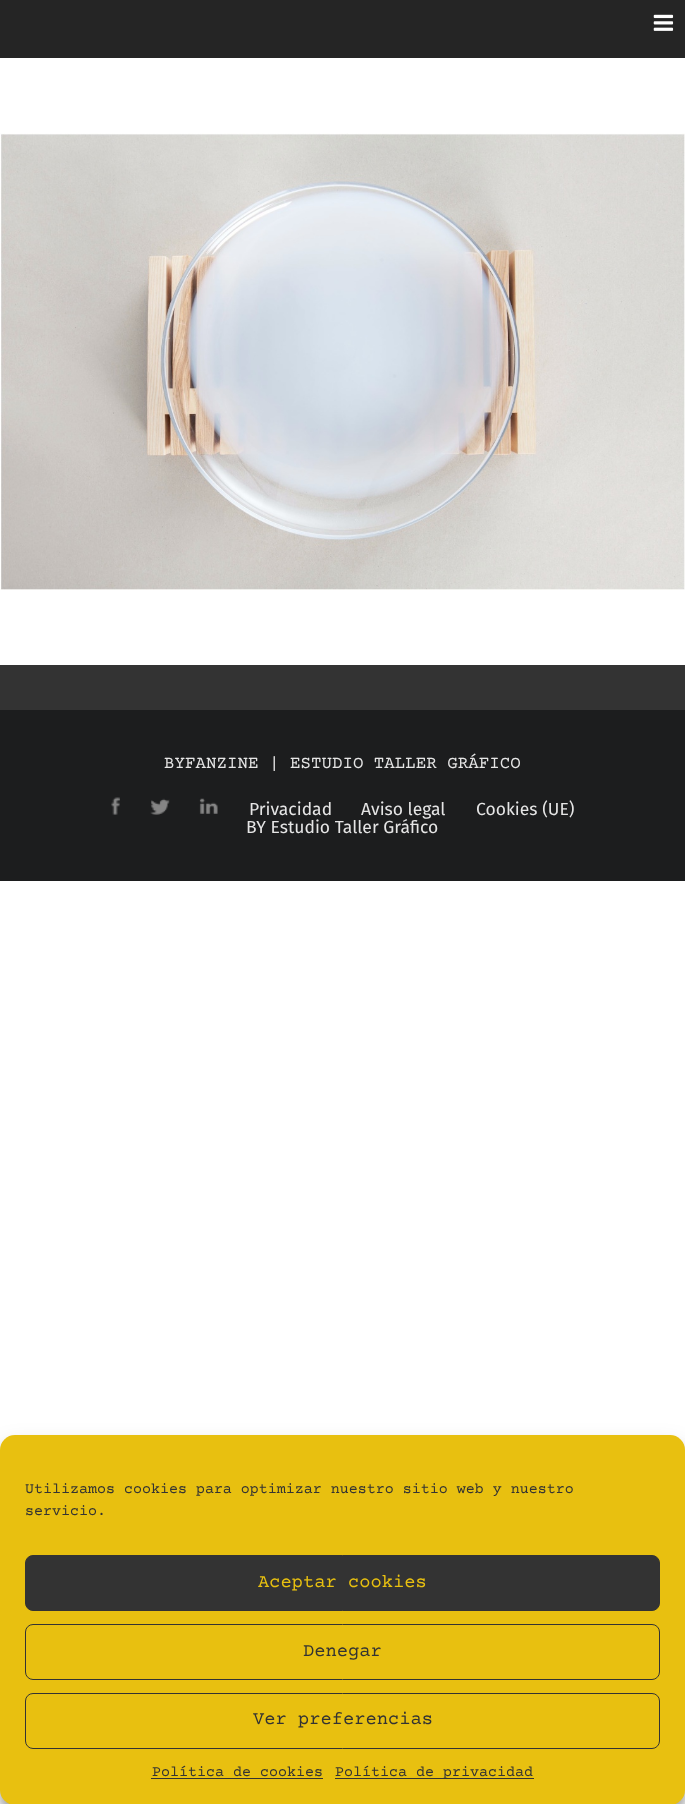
<!DOCTYPE html>
<meta charset="utf-8">
<style>body { margin: 0 } canvas { display: block }</style>
<canvas id="canvas" width="685" height="1804"></canvas>
<script type="module">
  const canvas = document.getElementById("canvas");
  const g = canvas.getContext("2d");
  g.miterLimit = 4;
  g.fontKerning = "normal";
  function drawText(s, x, y, [font, color]) {
    g.font = font;
    g.fillStyle = color;
    g.fillText(s, x, y);
  }
  function fillBox(x, y, w, h, color) {
    g.fillStyle = color;
    g.fillRect(x, y, w, h);
  }
  function fillRounded(x, y, w, h, r, color) {
    g.fillStyle = color;
    g.beginPath();
    g.roundRect(x, y, w, h, r);
    g.fill();
  }
  async function drawPicture(src, x, y, w, h) {
    const img = new Image();
    img.src = src;
    await img.decode();
    g.drawImage(img, x, y, w, h);
  }

  const s1 = ["17.5px Courier Prime", "#E5E5E5"];
  const s2 = ["17.5px Fira Sans", "#E5E5E5"];
  const s3 = ["15px Courier Prime", "#333333"];
  const s4 = ["18.75px Courier Prime", "#E8C010"];
  const s5 = ["18.75px Courier Prime", "#333333"];

  fillBox(0, 0, 685, 1804, "#FFFFFF");
  fillBox(0, 0, 685, 58, "#252525");
  await drawPicture("pic1.png", 653, 14, 21, 17);
  await drawPicture("pic2.png", 0, 133, 685, 457);
  fillBox(0, 710, 685, 171, "#1C1D1E");
  fillBox(0, 665, 685, 45, "#333333");
  drawText("BYFANZINE | ESTUDIO TALLER GRÁFICO", 164, 768, s1);
  await drawPicture("pic3.png", 111, 797, 9, 18);
  await drawPicture("pic4.png", 150, 798, 20, 17);
  await drawPicture("pic5.png", 199, 798, 19, 16);
  drawText("Privacidad", 249, 815, s2);
  drawText("Aviso legal", 361, 815, s2);
  drawText("Cookies (UE)", 476, 815, s2);
  drawText("BY Estudio Taller Gráfico", 246, 833, s2);
  g.fillStyle = "rgba(0, 0, 0, 0.23)";
  g.filter = "blur(4px)";
  g.beginPath();
  g.roundRect(0, 1443, 685, 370, 15);
  g.fill();
  g.filter = "none";
  g.fillStyle = "rgba(0, 0, 0, 0.19)";
  g.filter = "blur(12.5px)";
  g.beginPath();
  g.roundRect(0, 1448, 685, 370, 15);
  g.fill();
  g.filter = "none";
  fillRounded(0, 1435, 685, 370, 15, "#E8C010");
  drawText("Utilizamos cookies para optimizar nuestro sitio web y nuestro", 25, 1493, s3);
  drawText("servicio.", 25, 1515, s3);
  g.beginPath();
  g.roundRect(25.5, 1555.5, 634, 55, 7.5);
  g.fill();
  g.strokeStyle = "#333333";
  g.stroke();
  drawText("Aceptar cookies", 258, 1587, s4);
  g.beginPath();
  g.roundRect(25.5, 1624.5, 634, 55, 7.5);
  g.stroke();
  drawText("Denegar", 303, 1656, s5);
  g.beginPath();
  g.roundRect(25.5, 1693.5, 634, 55, 7.5);
  g.stroke();
  drawText("Ver preferencias", 253, 1724, s5);
  drawText("Política de cookies", 152, 1776, s3);
  fillBox(151, 1778, 172, 1, "#333333");
  fillBox(335, 1778, 199, 1, "#333333");
  drawText("Política de privacidad", 335, 1776, s3);
</script>
